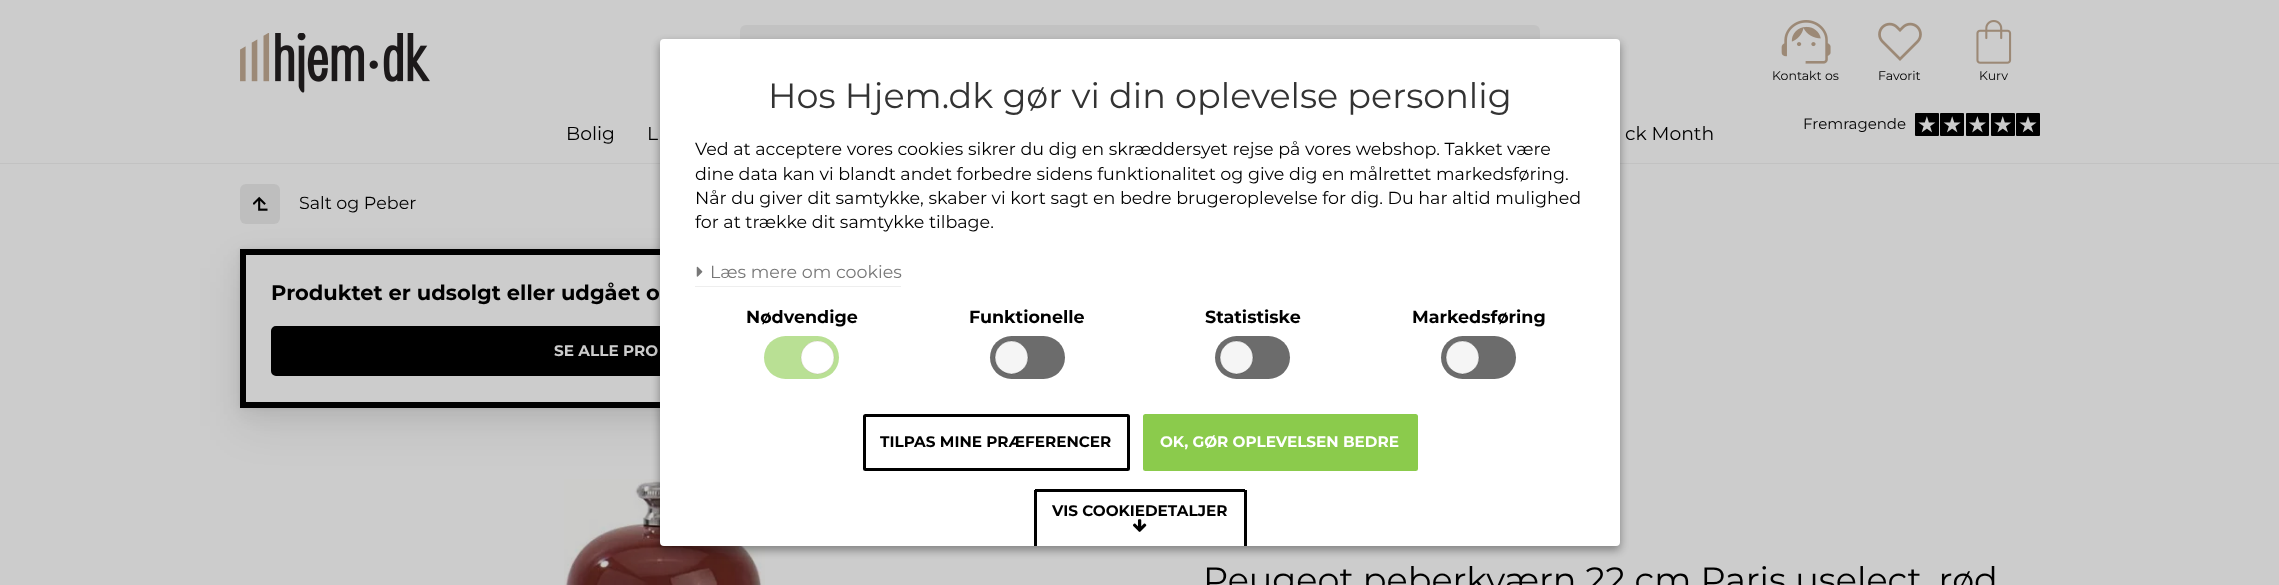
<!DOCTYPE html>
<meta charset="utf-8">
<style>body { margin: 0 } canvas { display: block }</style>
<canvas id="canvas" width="2279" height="585"></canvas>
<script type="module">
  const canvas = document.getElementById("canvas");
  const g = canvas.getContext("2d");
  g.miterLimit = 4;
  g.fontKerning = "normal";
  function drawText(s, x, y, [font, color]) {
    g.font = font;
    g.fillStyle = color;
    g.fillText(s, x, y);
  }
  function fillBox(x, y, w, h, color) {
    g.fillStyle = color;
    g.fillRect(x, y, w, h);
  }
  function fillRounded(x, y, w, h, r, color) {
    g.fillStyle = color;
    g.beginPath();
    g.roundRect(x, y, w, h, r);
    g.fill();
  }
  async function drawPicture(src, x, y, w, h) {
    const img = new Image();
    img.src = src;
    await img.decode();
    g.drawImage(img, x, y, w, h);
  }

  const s1 = ["12.5px Montserrat", "#000000"];
  const s2 = ["15px Montserrat", "#000000"];
  const s3 = ["18.75px Montserrat", "#000000"];
  const s4 = ["17.5px Montserrat", "#000000"];
  const s5 = ["bold 21px Montserrat", "#000000"];
  const s6 = ["bold 15.25px Montserrat", "#CCCCCC"];
  const s7 = ["35px Montserrat", "#000000"];
  const s8 = ["35px Montserrat", "#333333"];
  const s9 = ["17.5px Montserrat", "#777777"];
  const s10 = ["bold 17.5px Montserrat", "#000000"];
  const s11 = ["bold 15.25px Montserrat", "#000000"];
  const s12 = ["bold 15.25px Montserrat", "#FFFFFF"];

  fillBox(0, 0, 2279, 585, "#CCCCCC");
  fillBox(0, 163, 2279, 1, "#C2C2C2");
  await drawPicture("pic1.png", 240, 33, 190, 60);
  fillRounded(740, 25, 800, 63, 6, "#C2C2C2");
  await drawPicture("pic2.png", 1781, 20, 50, 44);
  drawText("Kontakt os", 1772, 80, s1);
  await drawPicture("pic3.png", 1878, 22, 44, 39);
  drawText("Favorit", 1878, 80, s1);
  await drawPicture("pic4.png", 1976, 20, 36, 44);
  drawText("Kurv", 1979, 80, s1);
  drawText("Fremragende", 1803, 129, s2);
  await drawPicture("pic5.png", 1915, 113, 125, 23);
  drawText("Bolig", 566, 140, s3);
  drawText("L", 647, 140, s3);
  drawText("ck Month", 1625, 140, s3);
  g.fillStyle = "rgba(0, 0, 0, 0.08)";
  g.filter = "blur(22px)";
  g.beginPath();
  g.rect(240, 268, 938, 158);
  g.fill();
  g.filter = "none";
  fillRounded(240, 184, 40, 40, 6, "#BEBEBE");
  await drawPicture("pic6.png", 253, 196, 15, 15);
  drawText("Salt og Peber", 299, 209, s4);
  g.fillStyle = "rgba(0, 0, 0, 0.06)";
  g.filter = "blur(2px)";
  g.beginPath();
  g.rect(240, 249, 938, 159);
  g.fill();
  g.filter = "none";
  g.filter = "blur(9.5px)";
  g.beginPath();
  g.rect(240, 255, 938, 159);
  g.fill();
  g.filter = "none";
  fillBox(246, 255, 414, 147, "#CCCCCC");
  g.strokeStyle = "#000000";
  g.lineWidth = 6;
  g.strokeRect(243, 252, 932, 153);
  drawText("Produktet er udsolgt eller udgået o", 271, 300, s5);
  g.beginPath();
  g.roundRect(272.5, 327.5, 872, 47, 3.5);
  g.fill();
  g.lineWidth = 3;
  g.stroke();
  drawText("SE ALLE PRO", 554, 356, s6);
  await drawPicture("pic7.png", 564, 479, 201, 106);
  drawText("Peugeot peberkværn 22 cm Paris uselect, rød", 1203, 592, s7);
  g.fillStyle = "rgba(0, 0, 0, 0.23)";
  g.filter = "blur(4px)";
  g.beginPath();
  g.roundRect(660, 43, 960, 507, 4);
  g.fill();
  g.filter = "none";
  g.fillStyle = "rgba(0, 0, 0, 0.16)";
  g.filter = "blur(4px)";
  g.beginPath();
  g.roundRect(660, 43, 960, 507, 4);
  g.fill();
  g.filter = "none";
  fillRounded(660, 39, 960, 507, 4, "#FFFFFF");
  drawText("Hos Hjem.dk gør vi din oplevelse personlig", 768, 108, s8);
  drawText("Ved at acceptere vores cookies sikrer du dig en skræddersyet rejse på vores webshop. Takket være", 695, 155, s4);
  drawText("dine data kan vi blandt andet forbedre sidens funktionalitet og give dig en målrettet markedsføring.", 695, 180, s4);
  drawText("Når du giver dit samtykke, skaber vi kort sagt en bedre brugeroplevelse for dig. Du har altid mulighed", 695, 204, s4);
  drawText("for at trække dit samtykke tilbage.", 695, 228, s4);
  fillBox(695, 286, 206, 1, "#EEEEEE");
  await drawPicture("pic8.png", 696, 266, 7, 11);
  drawText("Læs mere om cookies", 710, 278, s9);
  drawText("Nødvendige", 746, 323, s10);
  fillRounded(764, 336, 75, 43, 21.5, "#B9E094");
  g.beginPath();
  g.arc(817.5, 357.5, 16.4, 0, Math.PI * 2);
  g.strokeStyle = "#AF9F8F";
  g.lineWidth = 0.2;
  g.stroke();
  g.fillStyle = "#FFFFFF";
  g.beginPath();
  g.arc(817.5, 357.5, 16.4, 0, Math.PI * 2);
  g.fill();
  g.stroke();
  drawText("Funktionelle", 969, 323, s10);
  fillRounded(990, 336, 75, 43, 21.5, "#6C6C6C");
  g.beginPath();
  g.arc(1011.5, 357.5, 16.4, 0, Math.PI * 2);
  g.strokeStyle = "#202020";
  g.stroke();
  g.fillStyle = "#F5F5F5";
  g.beginPath();
  g.arc(1011.5, 357.5, 16.4, 0, Math.PI * 2);
  g.fill();
  g.stroke();
  drawText("Statistiske", 1205, 323, s10);
  fillRounded(1215, 336, 75, 43, 21.5, "#6C6C6C");
  g.beginPath();
  g.arc(1236.5, 357.5, 16.4, 0, Math.PI * 2);
  g.stroke();
  g.fillStyle = "#F5F5F5";
  g.beginPath();
  g.arc(1236.5, 357.5, 16.4, 0, Math.PI * 2);
  g.fill();
  g.stroke();
  drawText("Markedsføring", 1412, 323, s10);
  fillRounded(1441, 336, 75, 43, 21.5, "#6C6C6C");
  g.beginPath();
  g.arc(1462.5, 357.5, 16.4, 0, Math.PI * 2);
  g.stroke();
  g.fillStyle = "#F5F5F5";
  g.beginPath();
  g.arc(1462.5, 357.5, 16.4, 0, Math.PI * 2);
  g.fill();
  g.stroke();
  g.beginPath();
  g.roundRect(864.5, 415.5, 264, 54, 1);
  g.strokeStyle = "#000000";
  g.lineWidth = 3;
  g.stroke();
  drawText("TILPAS MINE PRÆFERENCER", 880, 447, s11);
  g.fillStyle = "#8BCB4C";
  g.beginPath();
  g.roundRect(1144.5, 415.5, 272, 54, 1);
  g.fill();
  g.strokeStyle = "#8BCB4C";
  g.stroke();
  drawText("OK, GØR OPLEVELSEN BEDRE", 1160, 447, s12);
  fillBox(1035, 489, 210, 3, "#000000");
  fillBox(1244, 490, 3, 56, "#000000");
  fillBox(1034, 490, 3, 56, "#000000");
  drawText("VIS COOKIEDETALJER", 1052, 516, s11);
  await drawPicture("pic9.png", 1133, 519, 14, 13);
</script>
